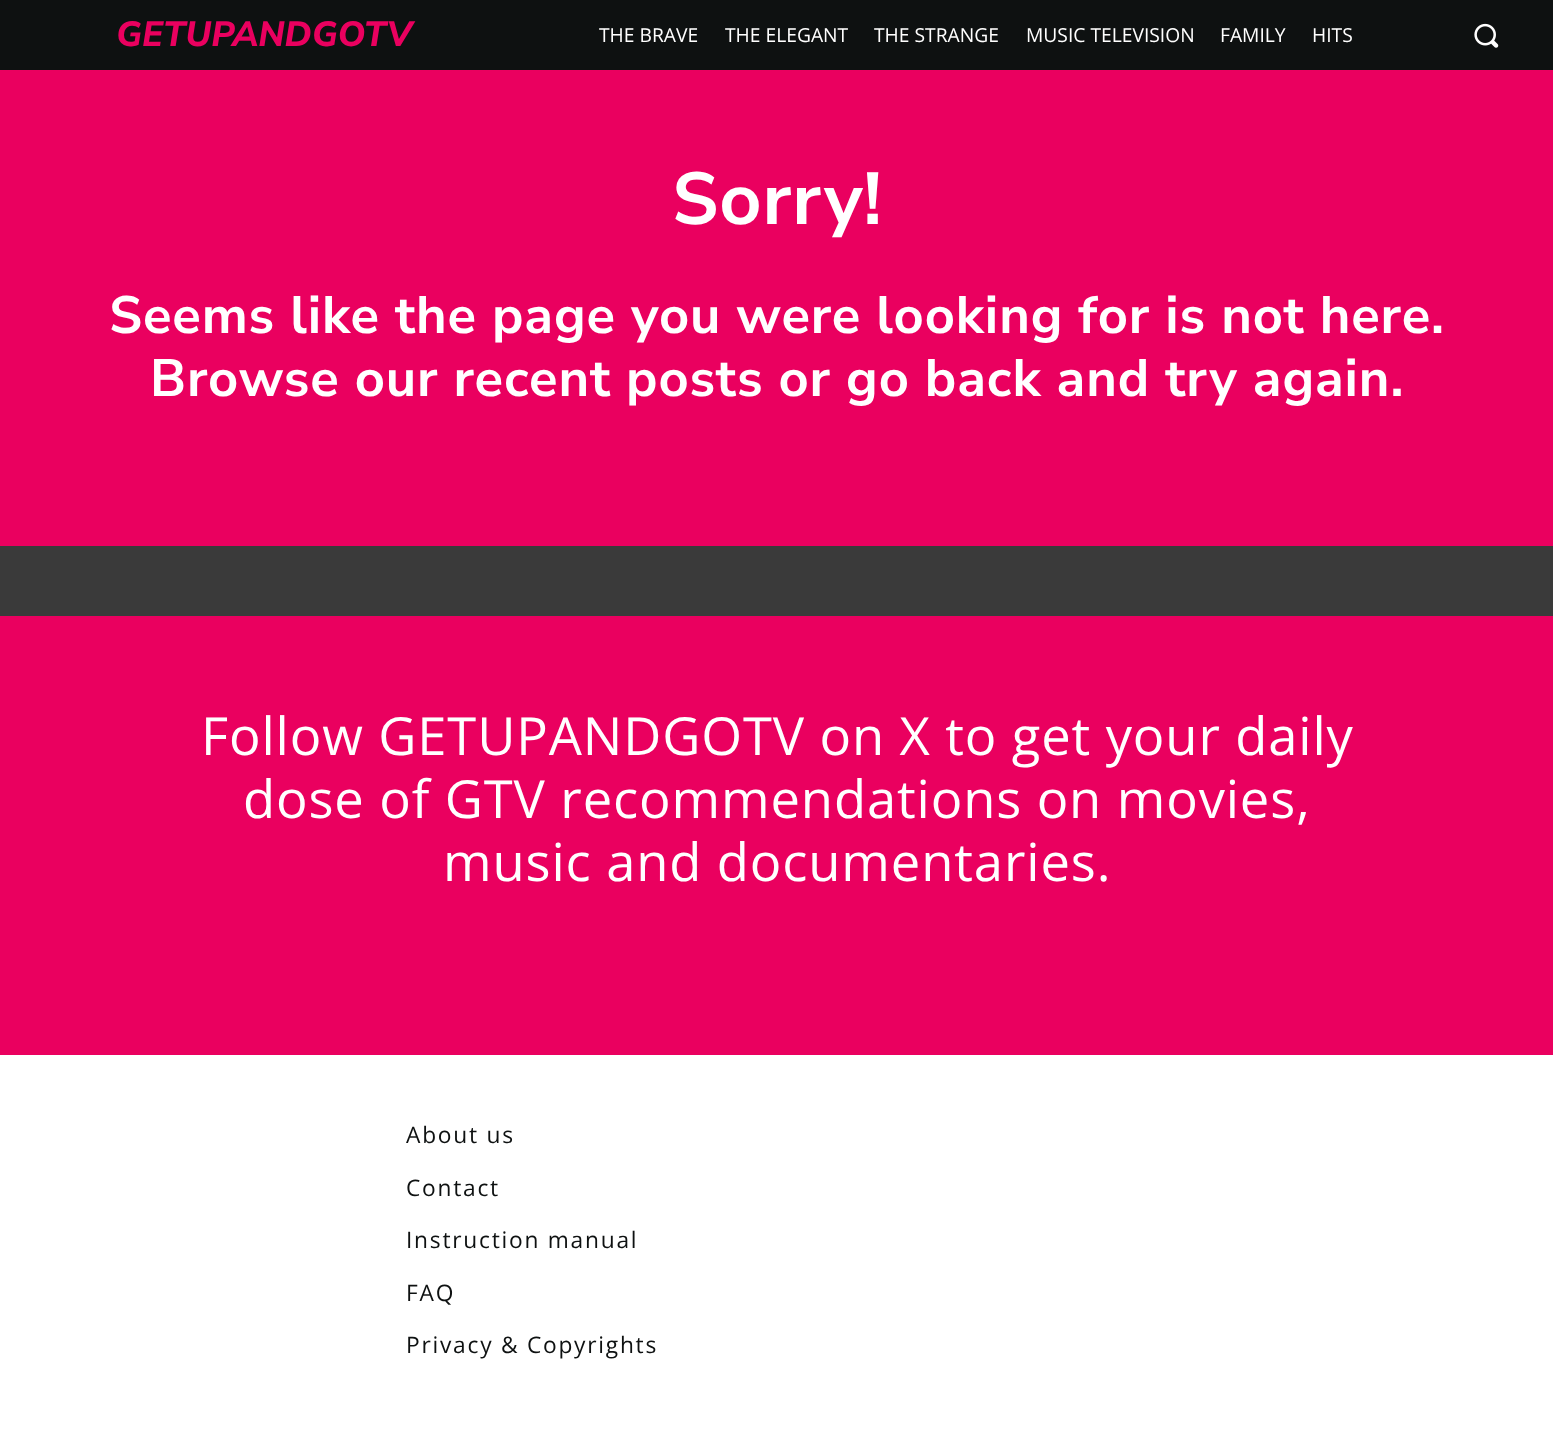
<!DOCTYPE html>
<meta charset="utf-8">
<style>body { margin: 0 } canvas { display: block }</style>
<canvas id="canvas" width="1553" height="1434"></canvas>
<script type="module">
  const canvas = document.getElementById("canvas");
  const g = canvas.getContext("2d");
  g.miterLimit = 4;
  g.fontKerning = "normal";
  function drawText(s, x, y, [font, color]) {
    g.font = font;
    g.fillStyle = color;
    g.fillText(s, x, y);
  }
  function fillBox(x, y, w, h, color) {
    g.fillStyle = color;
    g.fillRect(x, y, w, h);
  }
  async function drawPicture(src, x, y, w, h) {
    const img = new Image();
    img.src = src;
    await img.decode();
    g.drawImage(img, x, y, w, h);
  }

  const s1 = ["italic 200 35px Nunito Sans", "#EA005F"];
  const s2 = ["19.25px Open Sans", "#FFFFFF"];
  const s3 = ["bold 73.5px Nunito Sans", "#FFFFFF"];
  const s4 = ["bold 52.5px Nunito Sans", "#FFFFFF"];
  const s5 = ["52.5px Open Sans", "#FFFFFF"];
  const s6 = ["22.75px Open Sans", "#0E1111"];

  fillBox(0, 0, 1553, 1434, "#3A3A3A");
  fillBox(0, 0, 1553, 70, "#0E1111");
  drawText("GETUPANDGOTV", 116, 46, s1);
  drawText("THE BRAVE", 599, 42, s2);
  drawText("THE ELEGANT", 725, 42, s2);
  drawText("THE STRANGE", 874, 42, s2);
  drawText("MUSIC TELEVISION", 1026, 42, s2);
  drawText("FAMILY", 1220, 42, s2);
  drawText("HITS", 1312, 42, s2);
  await drawPicture("pic1.png", 1474, 23, 25, 25);
  fillBox(0, 70, 1553, 476, "#EA005F");
  g.letterSpacing = "0.88px";
  drawText("Sorry!", 672, 224, s3);
  drawText("Seems like the page you were looking for is not here.", 109, 333, s4);
  drawText("Browse our recent posts or go back and try again.", 150, 396, s4);
  fillBox(0, 616, 1553, 439, "#EA005F");
  drawText("Follow GETUPANDGOTV on X to get your daily", 201, 755, s5);
  drawText("dose of GTV recommendations on movies,", 243, 818, s5);
  drawText("music and documentaries.", 443, 881, s5);
  fillBox(0, 1055, 1553, 379, "#FFFFFF");
  g.letterSpacing = "1.75px";
  drawText("About us", 406, 1143, s6);
  drawText("Contact", 406, 1196, s6);
  drawText("Instruction manual", 406, 1248, s6);
  drawText("FAQ", 406, 1301, s6);
  drawText("Privacy & Copyrights", 406, 1353, s6);
</script>
